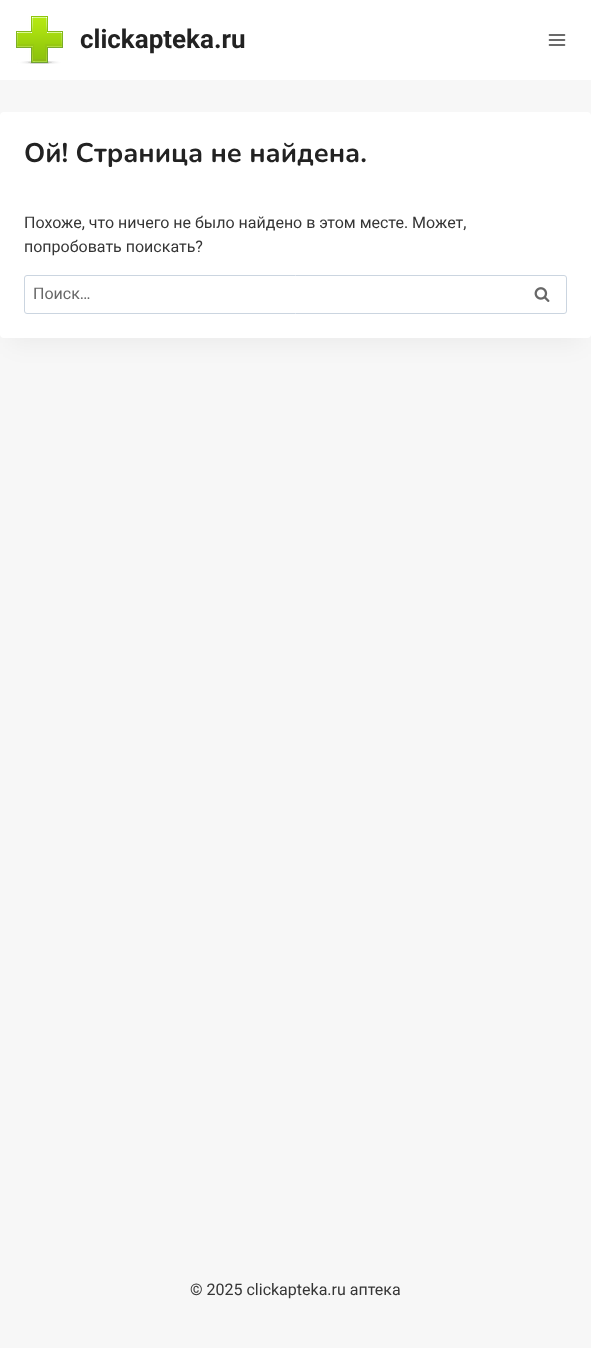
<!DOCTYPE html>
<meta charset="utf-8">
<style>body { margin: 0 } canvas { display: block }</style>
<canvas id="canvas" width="591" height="1348"></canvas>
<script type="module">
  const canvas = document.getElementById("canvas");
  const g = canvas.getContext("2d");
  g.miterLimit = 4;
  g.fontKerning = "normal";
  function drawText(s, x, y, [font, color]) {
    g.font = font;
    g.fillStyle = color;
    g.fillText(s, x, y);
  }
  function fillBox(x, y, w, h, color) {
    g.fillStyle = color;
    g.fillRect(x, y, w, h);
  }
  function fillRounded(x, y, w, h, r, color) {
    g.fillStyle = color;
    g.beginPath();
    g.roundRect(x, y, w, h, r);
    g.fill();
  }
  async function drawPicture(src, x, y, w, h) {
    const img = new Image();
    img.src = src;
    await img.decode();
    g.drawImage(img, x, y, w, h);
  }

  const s1 = ["bold 26px Roboto", "#222222"];
  const s2 = ["200 27px Nunito", "#222222"];
  const s3 = ["16px Roboto", "#353535"];
  const s4 = ["16px Roboto", "#676767"];

  fillBox(0, 0, 591, 1348, "#F7F7F7");
  fillBox(0, 0, 591, 80, "#FFFFFF");
  await drawPicture("pic1.png", 16, 16, 47, 48);
  drawText("clickapteka.ru", 80, 48, s1);
  await drawPicture("pic2.png", 548, 34, 18, 12);
  g.fillStyle = "rgba(0, 0, 0, 0.05)";
  g.filter = "blur(12.5px)";
  g.beginPath();
  g.rect(10, 137, 571, 206);
  g.fill();
  g.filter = "none";
  fillRounded(0, 112, 591, 226, 4, "#FFFFFF");
  drawText("Ой! Страница не найдена.", 24, 162, s2);
  drawText("Похоже, что ничего не было найдено в этом месте. Может,", 24, 228, s3);
  drawText("попробовать поискать?", 24, 252, s3);
  g.beginPath();
  g.roundRect(24.5, 275.5, 542, 38, 2.5);
  g.strokeStyle = "#CBD5E0";
  g.stroke();
  drawText("Поиск…", 33, 299, s4);
  await drawPicture("pic3.png", 534, 287, 16, 15);
  drawText("© 2025 clickapteka.ru аптека", 190, 1295, s3);
</script>
